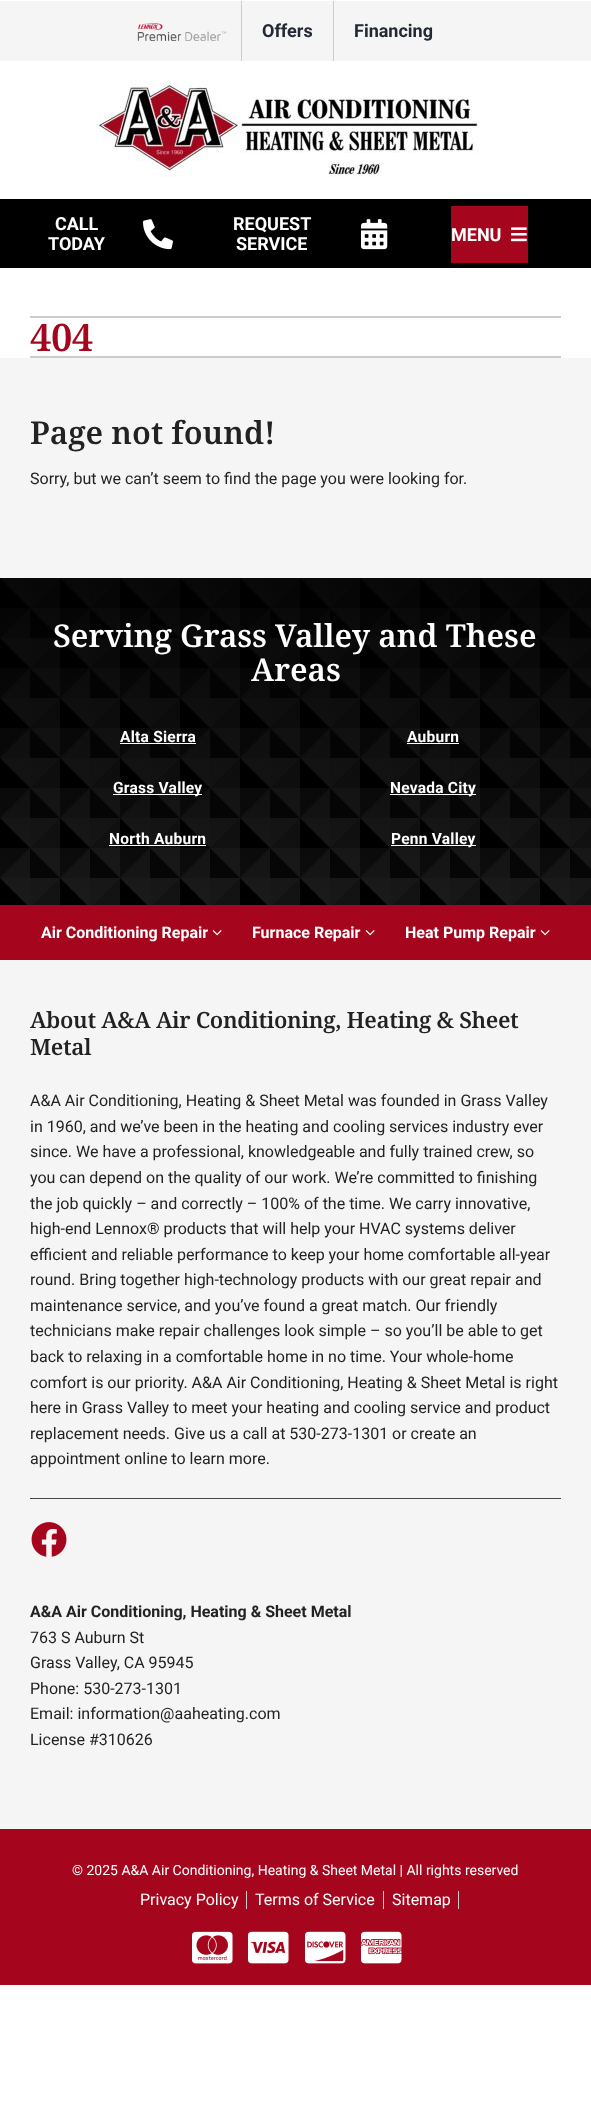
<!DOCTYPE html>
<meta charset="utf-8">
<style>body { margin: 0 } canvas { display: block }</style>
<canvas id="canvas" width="591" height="2127"></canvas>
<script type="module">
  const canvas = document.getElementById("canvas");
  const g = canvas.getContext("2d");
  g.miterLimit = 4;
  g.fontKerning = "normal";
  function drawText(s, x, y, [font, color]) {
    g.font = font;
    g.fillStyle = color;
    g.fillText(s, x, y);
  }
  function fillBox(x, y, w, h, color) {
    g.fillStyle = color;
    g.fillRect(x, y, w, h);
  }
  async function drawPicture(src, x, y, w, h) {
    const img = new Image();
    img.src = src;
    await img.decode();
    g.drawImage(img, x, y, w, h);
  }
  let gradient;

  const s1 = ["bold 18px Roboto", "#212934"];
  const s2 = ["bold 18px Roboto", "#FFFFFF"];
  const s3 = ["600 38px Noto Serif", "#A5061D"];
  const s4 = ["600 31.5px Noto Serif", "#222222"];
  const s5 = ["16px Roboto", "#222222"];
  const s6 = ["600 31.5px Noto Serif", "#FFFFFF"];
  const s7 = ["bold 15.5px Roboto", "#FFFFFF"];
  const s8 = ["bold 16px Roboto", "#FFFFFF"];
  const s9 = ["600 22.4px Noto Serif", "#222222"];
  const s10 = ["bold 16px Roboto", "#222222"];
  const s11 = ["14px Roboto", "#FFFFFF"];
  const s12 = ["16px Roboto", "#FFFFFF"];

  fillBox(0, 0, 591, 2127, "#FFFFFF");
  fillBox(0, 1, 591, 60, "#F5F5F5");
  await drawPicture("pic1.png", 137, 23, 90, 18);
  fillBox(241, 1, 1, 60, "#CCCCCC");
  drawText("Offers", 262, 37, s1);
  fillBox(333, 1, 1, 60, "#CCCCCC");
  drawText("Financing", 354, 37, s1);
  await drawPicture("pic2.png", 96, 81, 384, 96);
  fillBox(0, 199, 591, 69, "#000000");
  drawText("CALL", 55, 230, s2);
  drawText("TODAY", 48, 250, s2);
  await drawPicture("pic3.png", 143, 219, 30, 31);
  drawText("REQUEST", 233, 230, s2);
  drawText("SERVICE", 236, 250, s2);
  await drawPicture("pic4.png", 361, 219, 27, 31);
  fillBox(451, 206, 77, 57, "#A5061D");
  drawText("MENU", 451, 241, s2);
  await drawPicture("pic5.png", 511, 227, 16, 15);
  fillBox(30, 316, 531, 2, "#CCCCCC");
  g.letterSpacing = "-0.5px";
  drawText("404", 30, 351, s3);
  fillBox(30, 356, 531, 2, "#CCCCCC");
  fillBox(0, 358, 591, 220, "#F5F5F5");
  g.letterSpacing = "0px";
  drawText("Page not found!", 30, 444, s4);
  drawText("Sorry, but we can’t seem to find the page you were looking for.", 30, 484, s5);
  gradient = g.createLinearGradient(296, 578, 296, 905);
  gradient.addColorStop(0, "#080808");
  gradient.addColorStop(1, "#1A1A1A");
  g.fillStyle = gradient;
  g.fillRect(0, 578, 591, 327);
  await drawPicture("pic6.png", 0, 578, 591, 327);
  drawText("Serving Grass Valley and These", 53, 647, s6);
  drawText("Areas", 251, 681, s6);
  g.letterSpacing = "0.25px";
  drawText("Alta Sierra", 120, 742, s7);
  fillBox(120, 743, 76, 1, "#FFFFFF");
  drawText("Auburn", 407, 742, s7);
  fillBox(407, 743, 52, 1, "#FFFFFF");
  fillBox(113, 794, 89, 1, "#FFFFFF");
  drawText("Grass Valley", 113, 793, s7);
  fillBox(390, 794, 86, 1, "#FFFFFF");
  drawText("Nevada City", 390, 793, s7);
  drawText("North Auburn", 109, 844, s7);
  fillBox(109, 845, 97, 1, "#FFFFFF");
  fillBox(391, 845, 85, 1, "#FFFFFF");
  drawText("Penn Valley", 391, 844, s7);
  fillBox(0, 905, 591, 55, "#A5061D");
  g.letterSpacing = "0px";
  drawText("Air Conditioning Repair", 41, 938, s8);
  await drawPicture("pic7.png", 212, 930, 10, 6);
  drawText("Furnace Repair", 252, 938, s8);
  await drawPicture("pic7.png", 365, 930, 10, 6);
  drawText("Heat Pump Repair", 405, 938, s8);
  await drawPicture("pic7.png", 540, 930, 10, 6);
  fillBox(0, 960, 591, 869, "#F5F5F5");
  g.letterSpacing = "-0.35px";
  drawText("About A&A Air Conditioning, Heating & Sheet", 30, 1028, s9);
  drawText("Metal", 30, 1055, s9);
  g.letterSpacing = "0px";
  drawText("A&A Air Conditioning, Heating & Sheet Metal was founded in Grass Valley", 30, 1106, s5);
  drawText("in 1960, and we’ve been in the heating and cooling services industry ever", 30, 1132, s5);
  drawText("since. We have a professional, knowledgeable and fully trained crew, so", 30, 1157, s5);
  drawText("you can depend on the quality of our work. We’re committed to finishing", 30, 1183, s5);
  drawText("the job quickly – and correctly – 100% of the time. We carry innovative,", 30, 1209, s5);
  drawText("high-end Lennox® products that will help your HVAC systems deliver", 30, 1234, s5);
  drawText("efficient and reliable performance to keep your home comfortable all-year", 30, 1260, s5);
  drawText("round. Bring together high-technology products with our great repair and", 30, 1285, s5);
  drawText("maintenance service, and you’ve found a great match. Our friendly", 30, 1311, s5);
  drawText("technicians make repair challenges look simple – so you’ll be able to get", 30, 1336, s5);
  drawText("back to relaxing in a comfortable home in no time. Your whole-home", 30, 1362, s5);
  drawText("comfort is our priority. A&A Air Conditioning, Heating & Sheet Metal is right", 30, 1388, s5);
  drawText("here in Grass Valley to meet your heating and cooling service and product", 30, 1413, s5);
  drawText("replacement needs. Give us a call at 530-273-1301 or create an", 30, 1439, s5);
  drawText("appointment online to learn more.", 30, 1464, s5);
  fillBox(30, 1498, 531, 1, "#484848");
  await drawPicture("pic8.png", 31, 1522, 36, 35);
  drawText("A&A Air Conditioning, Heating & Sheet Metal", 30, 1617, s10);
  drawText("763 S Auburn St", 30, 1643, s5);
  drawText("Grass Valley, CA 95945", 30, 1668, s5);
  drawText("Phone: 530-273-1301", 30, 1694, s5);
  drawText("Email: information@aaheating.com", 30, 1719, s5);
  drawText("License #310626", 30, 1745, s5);
  fillBox(0, 1829, 591, 156, "#A5061D");
  drawText("© 2025 A&A Air Conditioning, Heating & Sheet Metal | All rights reserved", 72, 1875, s11);
  drawText("Privacy Policy", 140, 1905, s12);
  fillBox(246, 1891, 1, 18, "#CCCCCC");
  drawText("Terms of Service", 255, 1905, s12);
  fillBox(383, 1891, 1, 18, "#CCCCCC");
  drawText("Sitemap", 392, 1905, s12);
  fillBox(458, 1891, 1, 18, "#CCCCCC");
  await drawPicture("pic9.png", 192, 1931, 41, 33);
  await drawPicture("pic10.png", 248, 1931, 41, 33);
  await drawPicture("pic11.png", 305, 1931, 41, 33);
  await drawPicture("pic12.png", 361, 1931, 41, 33);
</script>
